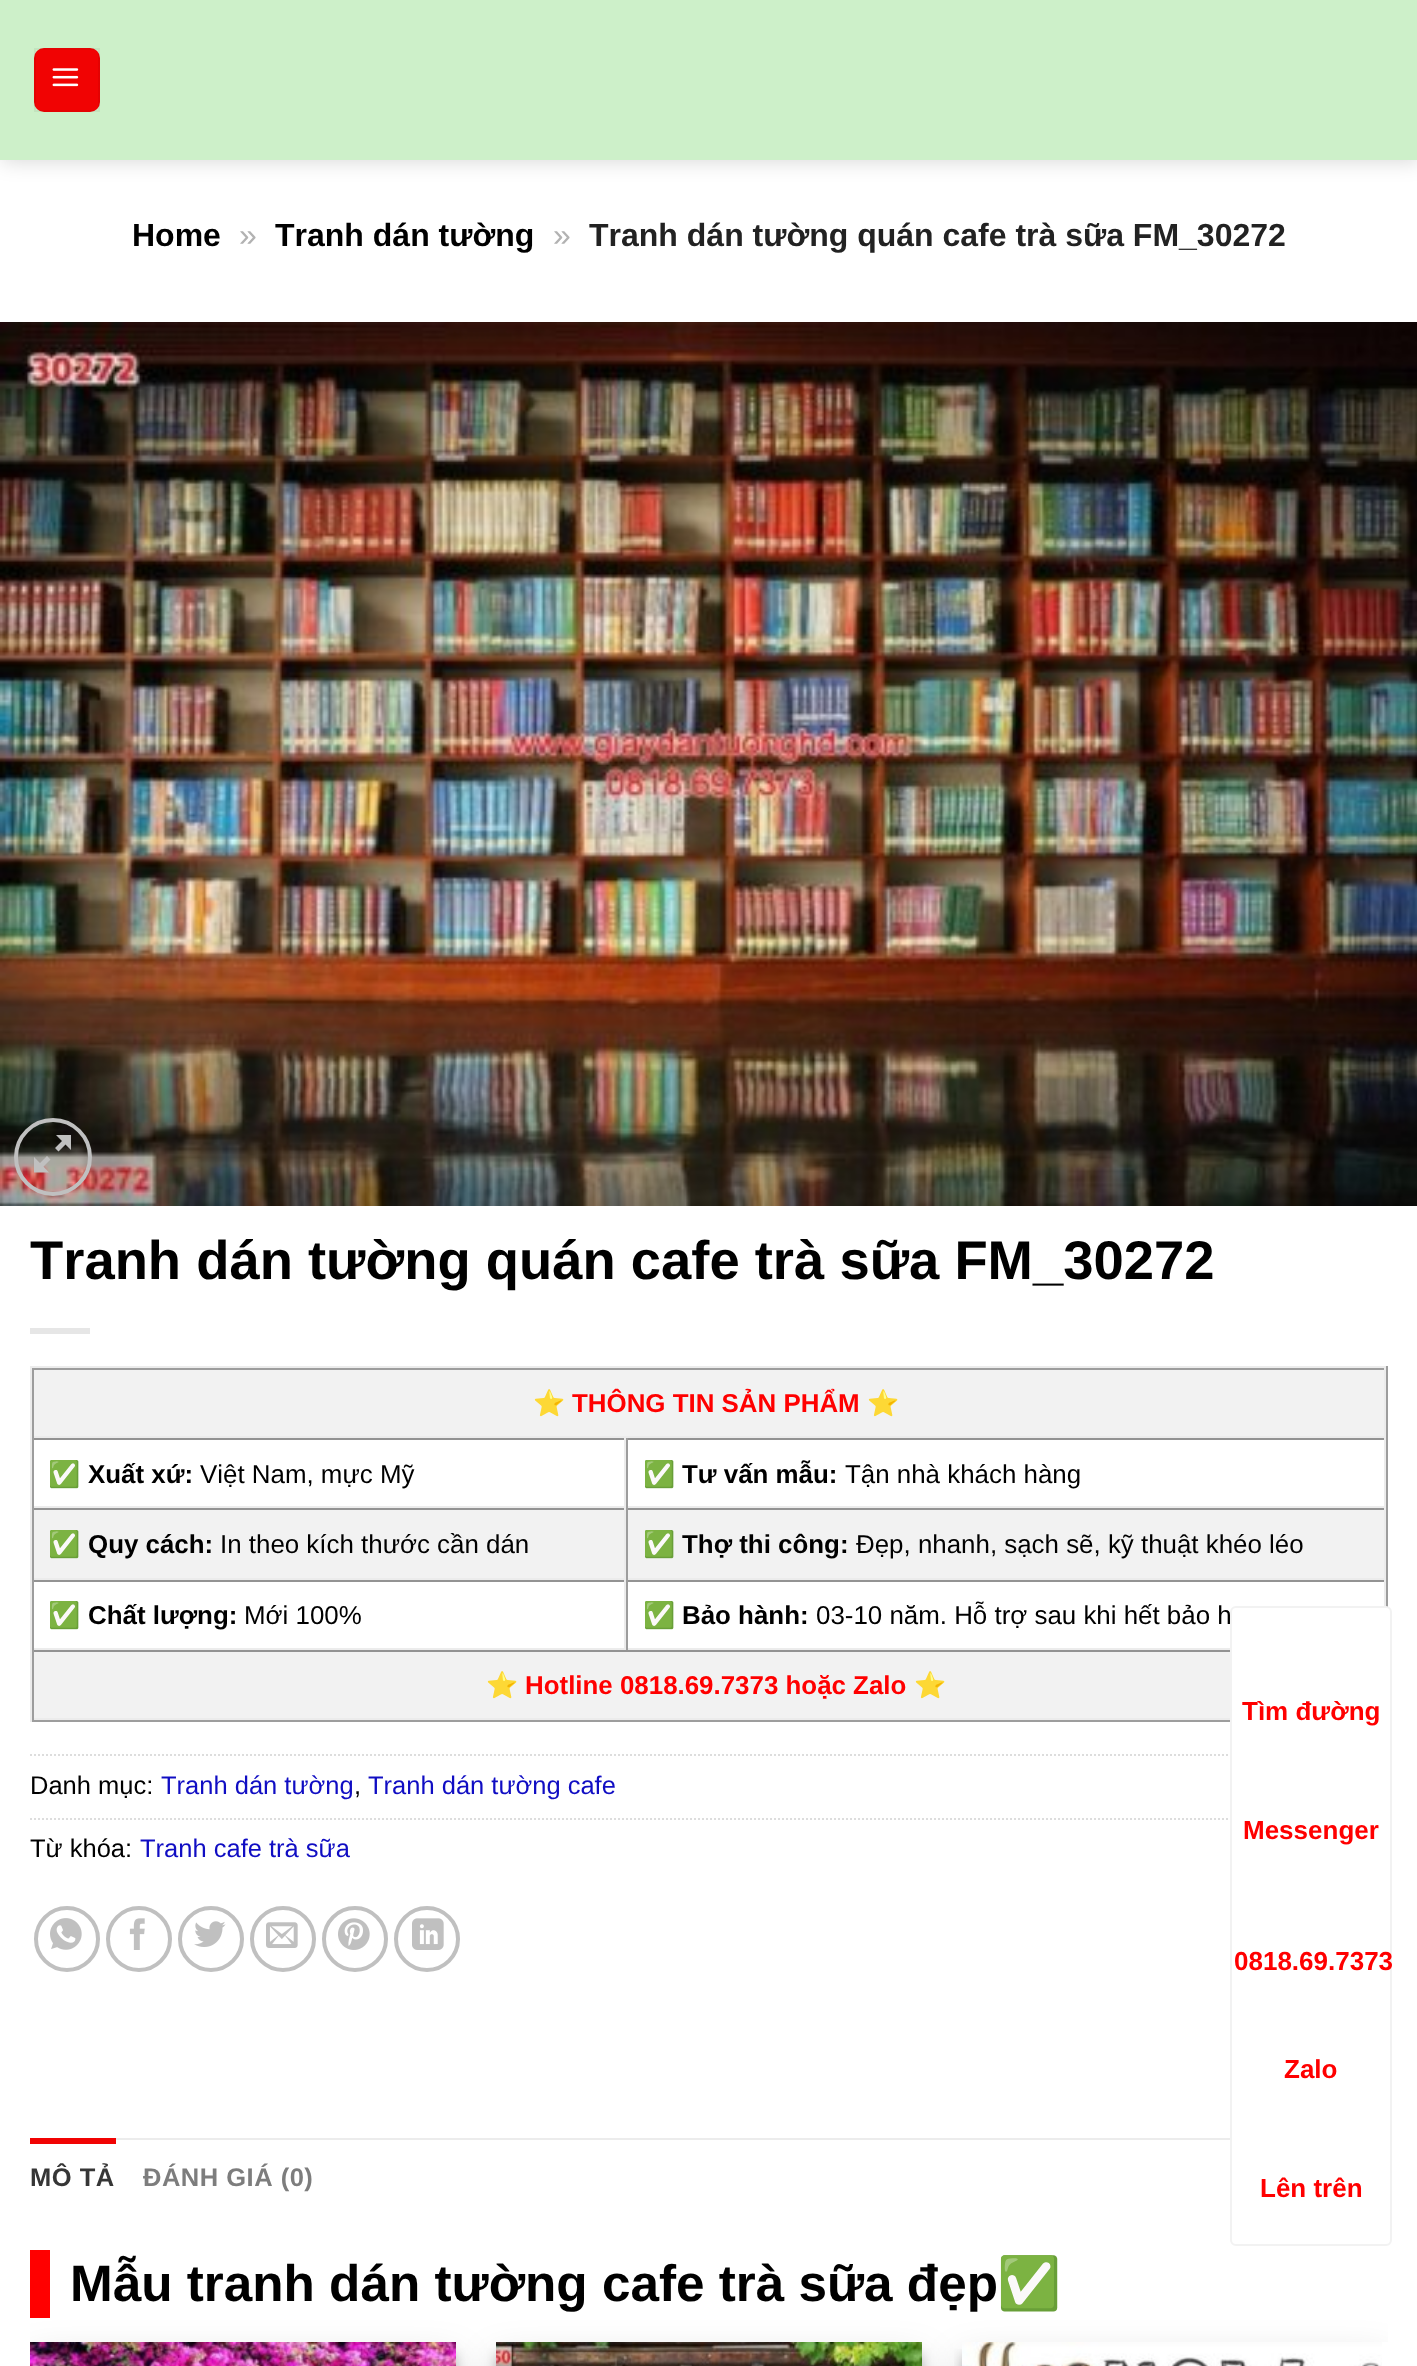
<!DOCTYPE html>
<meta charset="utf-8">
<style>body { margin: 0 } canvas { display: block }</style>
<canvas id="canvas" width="1417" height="2366"></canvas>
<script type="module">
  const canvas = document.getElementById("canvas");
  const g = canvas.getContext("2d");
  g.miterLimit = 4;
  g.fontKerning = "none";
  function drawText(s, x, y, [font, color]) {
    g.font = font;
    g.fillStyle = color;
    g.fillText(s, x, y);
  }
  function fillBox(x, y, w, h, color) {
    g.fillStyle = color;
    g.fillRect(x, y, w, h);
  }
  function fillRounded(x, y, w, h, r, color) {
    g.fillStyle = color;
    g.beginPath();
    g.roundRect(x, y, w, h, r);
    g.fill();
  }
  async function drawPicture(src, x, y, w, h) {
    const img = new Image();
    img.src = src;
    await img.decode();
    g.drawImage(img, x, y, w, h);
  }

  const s1 = ["bold 32px Liberation Sans", "#000000"];
  const s2 = ["32px Liberation Sans", "#B2B2B2"];
  const s3 = ["bold 32px Liberation Sans", "#222222"];
  const s4 = ["bold 54.4px Liberation Sans", "#000000"];
  const s5 = ["bold 25.9px Noto Color Emoji", "#FF0000"];
  const s6 = ["bold 25.9px Liberation Sans", "#FF0000"];
  const s7 = ["25.9px Noto Color Emoji", "#000000"];
  const s8 = ["bold 25.9px Liberation Sans", "#000000"];
  const s9 = ["25.9px Liberation Sans", "#000000"];
  const s10 = ["25.5px Liberation Sans", "#000000"];
  const s11 = ["25.5px Liberation Sans", "#100DC3"];
  const s12 = ["bold 25.5px Liberation Sans", "#363636"];
  const s13 = ["bold 25.5px Liberation Sans", "#7D7D7D"];
  const s14 = ["bold 51.25px Liberation Sans", "#000000"];
  const s15 = ["bold 51.25px Noto Color Emoji", "#000000"];
  const s16 = ["bold 26px Liberation Sans", "#FF0000"];

  fillBox(0, 0, 1417, 2366, "#FFFFFF");
  g.fillStyle = "rgba(0, 0, 0, 0.15)";
  g.filter = "blur(10px)";
  g.beginPath();
  g.rect(2, 2, 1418, 160);
  g.fill();
  g.filter = "none";
  fillBox(0, 0, 1417, 160, "#CDF0C9");
  fillRounded(34, 48, 66, 64, 10, "#F10303");
  g.strokeStyle = "rgba(0, 0, 0, 0.05)";
  g.lineWidth = 2;
  g.strokeRect(35, 49, 64, 62);
  await drawPicture("pic1.png", 52, 68, 27, 19);
  drawText("Home", 132, 246, s1);
  drawText("»", 239, 246, s2);
  drawText("Tranh dán tường", 275, 246, s1);
  drawText("»", 553, 246, s2);
  drawText("Tranh dán tường quán cafe trà sữa FM_30272", 589, 246, s3);
  await drawPicture("pic2.png", 0, 322, 1417, 884);
  g.beginPath();
  g.arc(53, 1157, 37, 0, Math.PI * 2);
  g.strokeStyle = "#C0C0C0";
  g.lineWidth = 4;
  g.stroke();
  g.fillStyle = "#C0C0C0";
  g.beginPath();
  g.moveTo(71, 1135);
  g.lineTo(71, 1150);
  g.lineTo(65.5, 1144.5);
  g.lineTo(58.5, 1151.5);
  g.lineTo(55, 1148);
  g.lineTo(62, 1141);
  g.lineTo(56, 1135);
  g.closePath();
  g.moveTo(50.5, 1159.5);
  g.lineTo(43.5, 1166.5);
  g.lineTo(49, 1172.5);
  g.lineTo(34, 1172.5);
  g.lineTo(34, 1157);
  g.lineTo(40, 1163);
  g.lineTo(47, 1156);
  g.closePath();
  g.fill();
  drawText("Tranh dán tường quán cafe trà sữa FM_30272", 30, 1279, s4);
  fillBox(30, 1328, 60, 6, "#E6E6E6");
  fillBox(30, 1366, 1358, 2, "#ECECEC");
  fillBox(1386, 1366, 2, 241, "#9D9D9D");
  fillBox(30, 1720, 1200, 2, "#9D9D9D");
  fillBox(30, 1366, 2, 356, "#ECECEC");
  fillBox(34, 1370, 1350, 66, "#F2F2F2");
  fillBox(32, 1368, 1354, 2, "#9D9D9D");
  fillBox(1384, 1368, 2, 70, "#ECECEC");
  fillBox(32, 1436, 1354, 2, "#ECECEC");
  fillBox(32, 1368, 2, 70, "#9D9D9D");
  drawText("⭐", 533, 1412, s5);
  drawText("THÔNG TIN SẢN PHẨM", 572, 1412, s6);
  drawText("⭐", 867, 1412, s5);
  fillBox(32, 1438, 1354, 2, "#939393");
  fillBox(624, 1438, 2, 70, "#ECECEC");
  fillBox(32, 1506, 594, 2, "#ECECEC");
  fillBox(32, 1438, 2, 70, "#9D9D9D");
  drawText("✅", 48, 1483, s7);
  drawText("Xuất xứ:", 88, 1483, s8);
  drawText("Việt Nam, mực Mỹ", 200, 1483, s9);
  fillBox(1384, 1438, 2, 70, "#ECECEC");
  fillBox(626, 1506, 760, 2, "#ECECEC");
  fillBox(626, 1438, 2, 70, "#9D9D9D");
  drawText("✅", 643, 1483, s7);
  drawText("Tư vấn mẫu:", 682, 1483, s8);
  drawText("Tận nhà khách hàng", 845, 1483, s9);
  fillBox(34, 1510, 1350, 68, "#F2F2F2");
  fillBox(32, 1508, 1354, 2, "#939393");
  fillBox(624, 1508, 2, 72, "#ECECEC");
  fillBox(32, 1578, 594, 2, "#ECECEC");
  fillBox(32, 1508, 2, 72, "#9D9D9D");
  drawText("✅", 48, 1553, s7);
  drawText("Quy cách:", 88, 1553, s8);
  drawText("In theo kích thước cần dán", 220, 1553, s9);
  fillBox(1384, 1508, 2, 72, "#ECECEC");
  fillBox(626, 1578, 760, 2, "#ECECEC");
  fillBox(626, 1508, 2, 72, "#9D9D9D");
  drawText("✅", 643, 1553, s7);
  drawText("Thợ thi công:", 682, 1553, s8);
  drawText("Đẹp, nhanh, sạch sẽ, kỹ thuật khéo léo", 856, 1553, s9);
  fillBox(32, 1580, 1354, 2, "#939393");
  fillBox(624, 1580, 2, 70, "#ECECEC");
  fillBox(32, 1648, 1198, 2, "#ECECEC");
  fillBox(32, 1580, 2, 70, "#9D9D9D");
  drawText("✅", 48, 1624, s7);
  drawText("Chất lượng:", 88, 1624, s8);
  drawText("Mới 100%", 244, 1624, s9);
  fillBox(1384, 1580, 2, 26, "#ECECEC");
  fillBox(626, 1580, 2, 70, "#9D9D9D");
  drawText("✅", 643, 1624, s7);
  drawText("Bảo hành:", 682, 1624, s8);
  drawText("03-10 năm. Hỗ trợ sau khi hết bảo h", 816, 1624, s9);
  fillBox(34, 1652, 1196, 66, "#F2F2F2");
  fillBox(32, 1650, 1198, 2, "#939393");
  fillBox(32, 1718, 1198, 2, "#ECECEC");
  fillBox(32, 1650, 2, 70, "#9D9D9D");
  drawText("⭐", 486, 1694, s5);
  drawText("Hotline 0818.69.7373 hoặc Zalo", 525, 1694, s6);
  drawText("⭐", 914, 1694, s5);
  g.beginPath();
  g.moveTo(30, 1755);
  g.lineTo(1388, 1755);
  g.strokeStyle = "#DDDDDD";
  g.lineWidth = 2;
  g.setLineDash([2, 2]);
  g.stroke();
  drawText("Danh mục:", 30, 1794, s10);
  drawText("Tranh dán tường", 161, 1794, s11);
  drawText(",", 354, 1794, s10);
  drawText("Tranh dán tường cafe", 368, 1794, s11);
  g.beginPath();
  g.moveTo(30, 1819);
  g.lineTo(1388, 1819);
  g.stroke();
  drawText("Từ khóa:", 30, 1857, s10);
  drawText("Tranh cafe trà sữa", 140, 1857, s11);
  g.beginPath();
  g.arc(67, 1939, 31, 0, Math.PI * 2);
  g.strokeStyle = "#C0C0C0";
  g.lineWidth = 4;
  g.setLineDash([]);
  g.stroke();
  await drawPicture("pic3.png", 50, 1918, 32, 32);
  g.beginPath();
  g.arc(139, 1939, 31, 0, Math.PI * 2);
  g.stroke();
  await drawPicture("pic4.png", 129, 1918, 16, 32);
  g.beginPath();
  g.arc(211, 1939, 31, 0, Math.PI * 2);
  g.stroke();
  await drawPicture("pic5.png", 194, 1921, 32, 26);
  g.beginPath();
  g.arc(283, 1939, 31, 0, Math.PI * 2);
  g.stroke();
  await drawPicture("pic6.png", 266, 1922, 32, 26);
  g.beginPath();
  g.arc(355, 1939, 31, 0, Math.PI * 2);
  g.stroke();
  await drawPicture("pic7.png", 338, 1918, 32, 32);
  g.beginPath();
  g.arc(427, 1939, 31, 0, Math.PI * 2);
  g.stroke();
  await drawPicture("pic8.png", 412, 1918, 32, 32);
  fillBox(116, 2138, 1114, 2, "#ECECEC");
  fillBox(30, 2138, 86, 6, "#F10303");
  g.letterSpacing = "0.5px";
  drawText("MÔ TẢ", 30, 2186, s12);
  drawText("ĐÁNH GIÁ (0)", 143, 2186, s13);
  fillBox(30, 2250, 20, 68, "#FF0000");
  g.letterSpacing = "0px";
  drawText("Mẫu tranh dán tường cafe trà sữa đẹp", 70, 2301, s14);
  drawText("✅", 997, 2301, s15);
  g.save();
  g.beginPath();
  g.rect(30, 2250, 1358, 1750);
  g.clip();
  g.fillStyle = "rgba(0, 0, 0, 0.22)";
  g.filter = "blur(6px)";
  g.beginPath();
  g.rect(30, 2354, 426, 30);
  g.fill();
  g.filter = "none";
  g.fillStyle = "rgba(0, 0, 0, 0.19)";
  g.filter = "blur(20px)";
  g.beginPath();
  g.rect(30, 2362, 426, 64);
  g.fill();
  g.filter = "none";
  g.restore();
  await drawPicture("pic9.png", 30, 2342, 426, 24);
  g.fillStyle = "rgba(0, 0, 0, 0.22)";
  g.filter = "blur(6px)";
  g.beginPath();
  g.rect(496, 2354, 426, 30);
  g.fill();
  g.filter = "none";
  g.fillStyle = "rgba(0, 0, 0, 0.19)";
  g.filter = "blur(20px)";
  g.beginPath();
  g.rect(496, 2362, 426, 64);
  g.fill();
  g.filter = "none";
  await drawPicture("pic10.png", 496, 2342, 426, 24);
  g.save();
  g.beginPath();
  g.rect(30, 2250, 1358, 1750);
  g.clip();
  g.beginPath();
  g.rect(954, 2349, 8, 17);
  g.clip();
  g.fillStyle = "rgba(0, 0, 0, 0.22)";
  g.filter = "blur(6px)";
  g.beginPath();
  g.rect(962, 2354, 426, 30);
  g.fill();
  g.filter = "none";
  g.restore();
  g.save();
  g.beginPath();
  g.rect(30, 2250, 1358, 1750);
  g.clip();
  g.beginPath();
  g.moveTo(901, 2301);
  g.lineTo(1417, 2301);
  g.lineTo(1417, 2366);
  g.lineTo(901, 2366);
  g.closePath();
  g.moveTo(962, 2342);
  g.lineTo(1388, 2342);
  g.lineTo(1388, 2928);
  g.lineTo(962, 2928);
  g.closePath();
  g.clip("evenodd");
  g.filter = "blur(20px)";
  g.beginPath();
  g.rect(962, 2362, 426, 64);
  g.fill();
  g.filter = "none";
  g.restore();
  await drawPicture("pic11.png", 962, 2342, 420, 24);
  g.fillStyle = "#FFFFFF";
  g.beginPath();
  g.roundRect(1231, 1607, 160, 638, 5);
  g.fill();
  g.strokeStyle = "#F2F2F2";
  g.lineWidth = 2;
  g.stroke();
  drawText("Tìm đường", 1242, 1720, s16);
  drawText("Messenger", 1243, 1839, s16);
  drawText("0818.69.7373", 1234, 1970, s16);
  drawText("Zalo", 1284, 2078, s16);
  drawText("Lên trên", 1260, 2197, s16);
</script>
